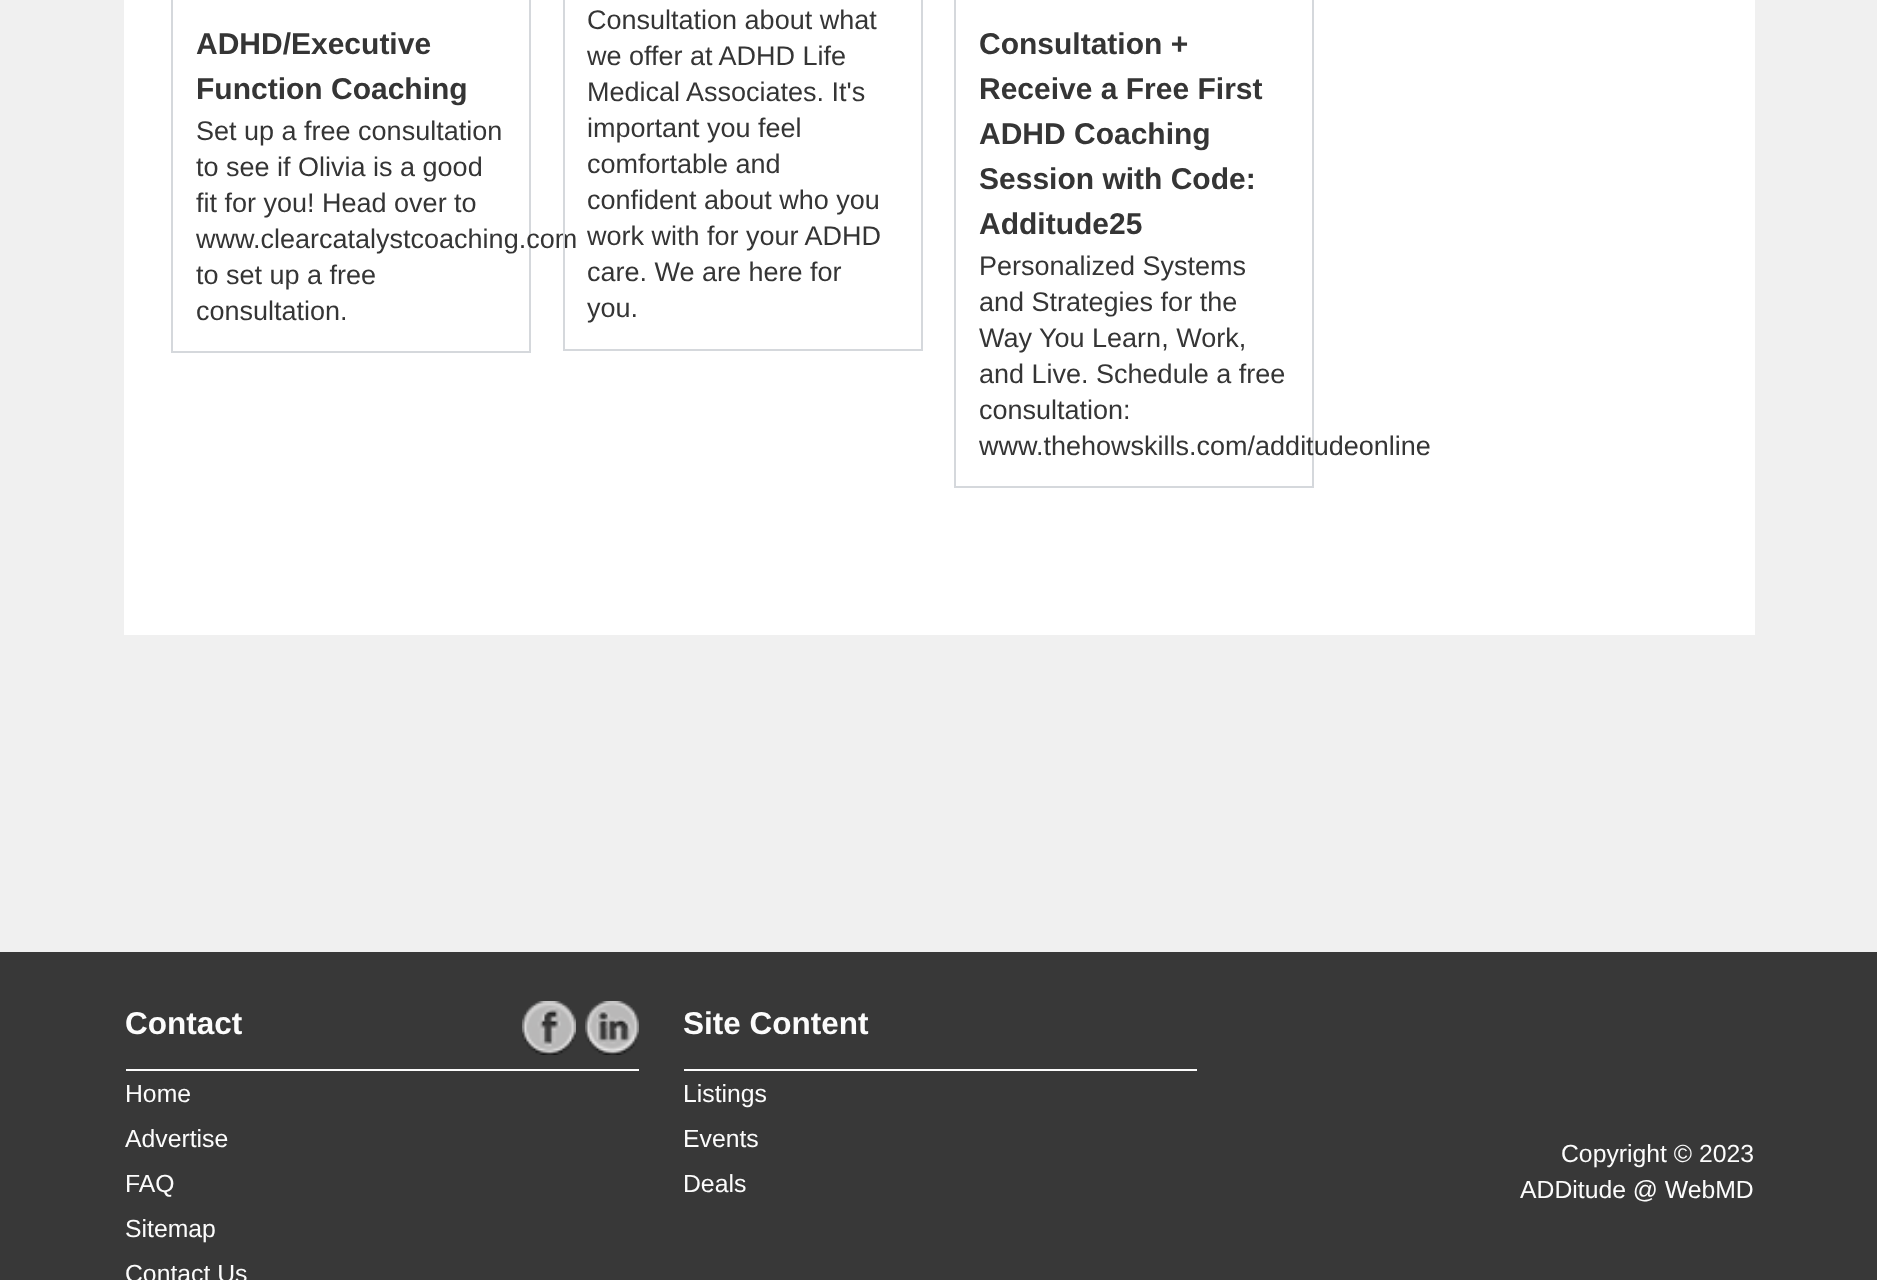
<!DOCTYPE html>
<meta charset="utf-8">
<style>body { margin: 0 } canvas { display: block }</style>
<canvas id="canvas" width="1877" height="1280"></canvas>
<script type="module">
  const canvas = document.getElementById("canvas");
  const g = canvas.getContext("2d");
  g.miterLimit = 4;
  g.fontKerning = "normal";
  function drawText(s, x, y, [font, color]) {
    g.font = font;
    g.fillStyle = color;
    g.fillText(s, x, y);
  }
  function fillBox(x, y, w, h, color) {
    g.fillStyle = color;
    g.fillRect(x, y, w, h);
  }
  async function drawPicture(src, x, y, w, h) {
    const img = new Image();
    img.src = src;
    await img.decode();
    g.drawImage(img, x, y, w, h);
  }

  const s1 = ["bold 30px Liberation Sans", "#353535"];
  const s2 = ["27px Liberation Sans", "#353535"];
  const s3 = ["bold 31.5px Liberation Sans", "#FCFCFC"];
  const s4 = ["24.75px Liberation Sans", "#FCFCFC"];

  fillBox(0, 0, 1877, 1280, "#F0F0F0");
  fillBox(124, 0, 1631, 635, "#FFFFFF");
  g.strokeStyle = "#D5D8DC";
  g.lineWidth = 2;
  g.strokeRect(172, -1, 358, 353);
  drawText("ADHD/Executive", 196, 54, s1);
  drawText("Function Coaching", 196, 99, s1);
  drawText("Set up a free consultation", 196, 140, s2);
  drawText("to see if Olivia is a good", 196, 176, s2);
  drawText("fit for you! Head over to", 196, 212, s2);
  drawText("www.clearcatalystcoaching.com", 196, 248, s2);
  drawText("to set up a free", 196, 284, s2);
  drawText("consultation.", 196, 320, s2);
  g.strokeRect(564, -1, 358, 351);
  drawText("Consultation about what", 587, 29, s2);
  drawText("we offer at ADHD Life", 587, 65, s2);
  drawText("Medical Associates. It's", 587, 101, s2);
  drawText("important you feel", 587, 137, s2);
  drawText("comfortable and", 587, 173, s2);
  drawText("confident about who you", 587, 209, s2);
  drawText("work with for your ADHD", 587, 245, s2);
  drawText("care. We are here for", 587, 281, s2);
  drawText("you.", 587, 317, s2);
  g.strokeRect(955, -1, 358, 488);
  drawText("Consultation +", 979, 54, s1);
  drawText("Receive a Free First", 979, 99, s1);
  drawText("ADHD Coaching", 979, 144, s1);
  drawText("Session with Code:", 979, 189, s1);
  drawText("Additude25", 979, 234, s1);
  drawText("Personalized Systems", 979, 275, s2);
  drawText("and Strategies for the", 979, 311, s2);
  drawText("Way You Learn, Work,", 979, 347, s2);
  drawText("and Live. Schedule a free", 979, 383, s2);
  drawText("consultation:", 979, 419, s2);
  drawText("www.thehowskills.com/additudeonline", 979, 455, s2);
  fillBox(0, 952, 1877, 328, "#383838");
  fillBox(126, 1069, 513, 2, "#FCFCFC");
  drawText("Contact", 125, 1034, s3);
  await drawPicture("pic1.png", 522, 1001, 54, 54);
  await drawPicture("pic2.png", 585, 1001, 54, 54);
  drawText("Home", 125, 1102, s4);
  drawText("Advertise", 125, 1147, s4);
  drawText("FAQ", 125, 1192, s4);
  drawText("Sitemap", 125, 1237, s4);
  drawText("Contact Us", 125, 1282, s4);
  fillBox(684, 1069, 513, 2, "#FCFCFC");
  drawText("Site Content", 683, 1034, s3);
  drawText("Listings", 683, 1102, s4);
  drawText("Events", 683, 1147, s4);
  drawText("Deals", 683, 1192, s4);
  drawText("Copyright © 2023", 1561, 1162, s4);
  drawText("ADDitude @ WebMD", 1520, 1198, s4);
</script>
